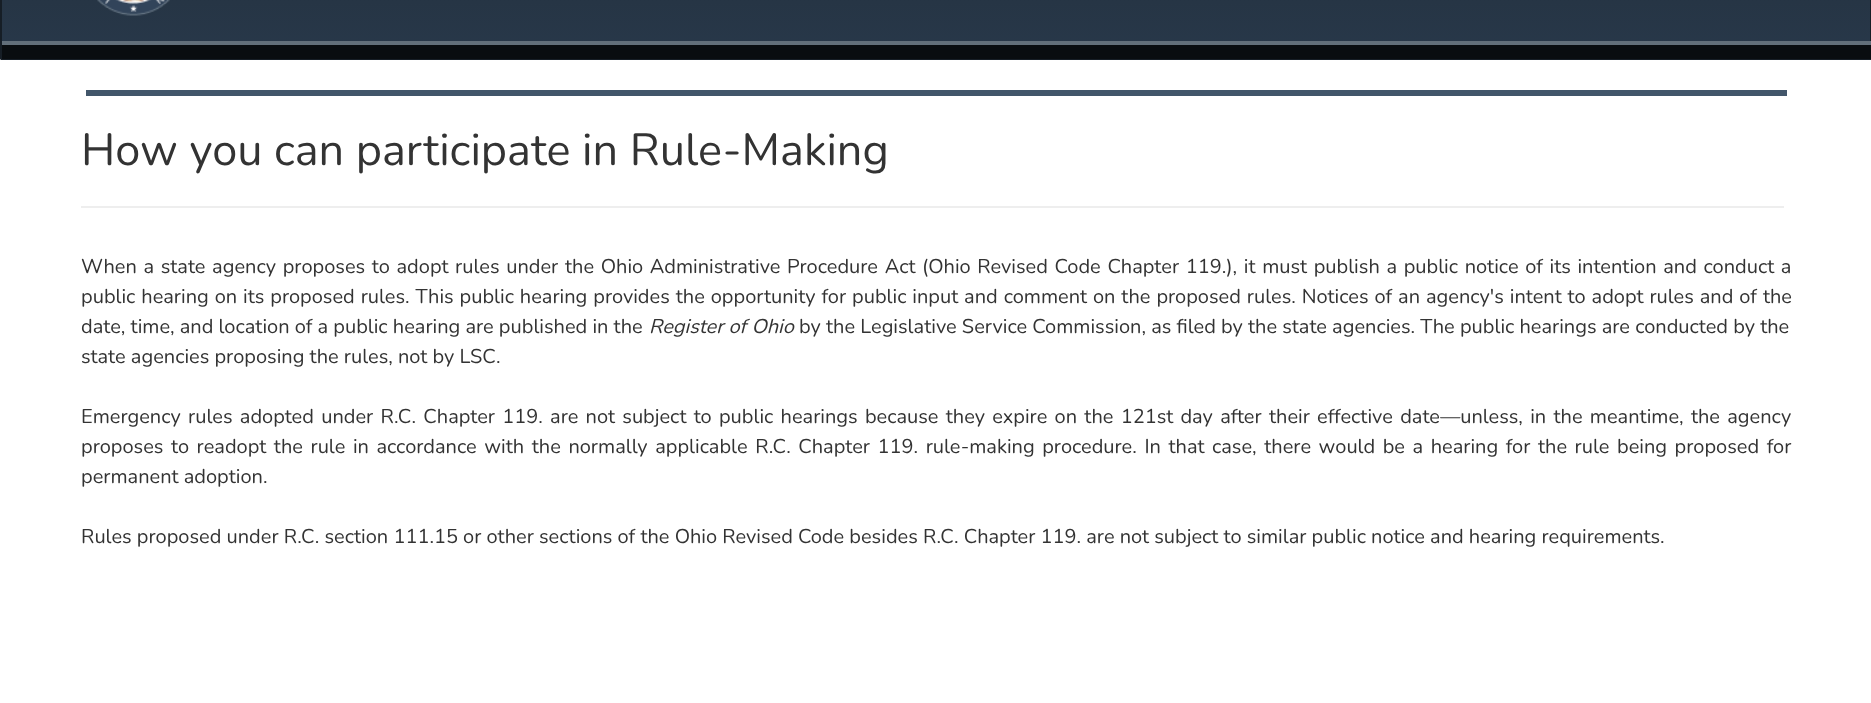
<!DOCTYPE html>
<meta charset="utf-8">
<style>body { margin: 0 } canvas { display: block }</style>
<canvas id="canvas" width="1871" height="703"></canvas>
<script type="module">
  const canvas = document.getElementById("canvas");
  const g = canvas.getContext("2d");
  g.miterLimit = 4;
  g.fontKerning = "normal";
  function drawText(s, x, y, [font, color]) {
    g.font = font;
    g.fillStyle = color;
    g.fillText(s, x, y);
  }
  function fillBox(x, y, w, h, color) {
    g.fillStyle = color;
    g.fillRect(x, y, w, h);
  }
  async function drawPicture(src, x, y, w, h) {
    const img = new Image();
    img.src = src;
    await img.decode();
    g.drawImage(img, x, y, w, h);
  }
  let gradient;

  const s1 = ["200 45px Nunito", "#333333"];
  const s2 = ["200 20px Nunito", "#333333"];
  const s3 = ["italic 200 20px Nunito", "#333333"];

  fillBox(0, 0, 1871, 703, "#FFFFFF");
  gradient = g.createLinearGradient(936, -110, 936, 59);
  gradient.addColorStop(0, "#222F3B");
  gradient.addColorStop(1, "#28384A");
  g.fillStyle = gradient;
  g.fillRect(0, 0, 1870, 59);
  g.beginPath();
  g.roundRect(1, -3, 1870, 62, 0.5);
  g.strokeStyle = "#161E26";
  g.lineWidth = 2;
  g.stroke();
  await drawPicture("pic1.png", 97, 0, 73, 16);
  fillBox(2, 41, 1869, 4, "#626F7A");
  fillBox(2, 45, 1869, 14, "#090D10");
  fillBox(86, 90, 1701, 6, "#42566A");
  drawText("How you can participate in Rule-Making", 81, 165, s1);
  fillBox(81, 206, 1703, 2, "#EEEEEE");
  g.wordSpacing = "1.5px";
  drawText("When a state agency proposes to adopt rules under the Ohio Administrative Procedure Act (Ohio Revised Code Chapter 119.), it must publish a public notice of its intention and conduct a", 81, 273, s2);
  g.wordSpacing = "0.75px";
  drawText("public hearing on its proposed rules. This public hearing provides the opportunity for public input and comment on the proposed rules. Notices of an agency's intent to adopt rules and of the", 81, 303, s2);
  g.wordSpacing = "0px";
  drawText("date, time, and location of a public hearing are published in the", 81, 333, s2);
  drawText("Register of Ohio", 649, 333, s3);
  drawText("by the Legislative Service Commission, as filed by the state agencies. The public hearings are conducted by the", 799, 333, s2);
  drawText("state agencies proposing the rules, not by LSC.", 81, 363, s2);
  g.wordSpacing = "2.1px";
  drawText("Emergency rules adopted under R.C. Chapter 119. are not subject to public hearings because they expire on the 121st day after their effective date—unless, in the meantime, the agency", 81, 423, s2);
  g.wordSpacing = "2.4px";
  drawText("proposes to readopt the rule in accordance with the normally applicable R.C. Chapter 119. rule-making procedure. In that case, there would be a hearing for the rule being proposed for", 81, 453, s2);
  g.wordSpacing = "0px";
  drawText("permanent adoption.", 81, 483, s2);
  drawText("Rules proposed under R.C. section 111.15 or other sections of the Ohio Revised Code besides R.C. Chapter 119. are not subject to similar public notice and hearing requirements.", 81, 543, s2);
</script>
